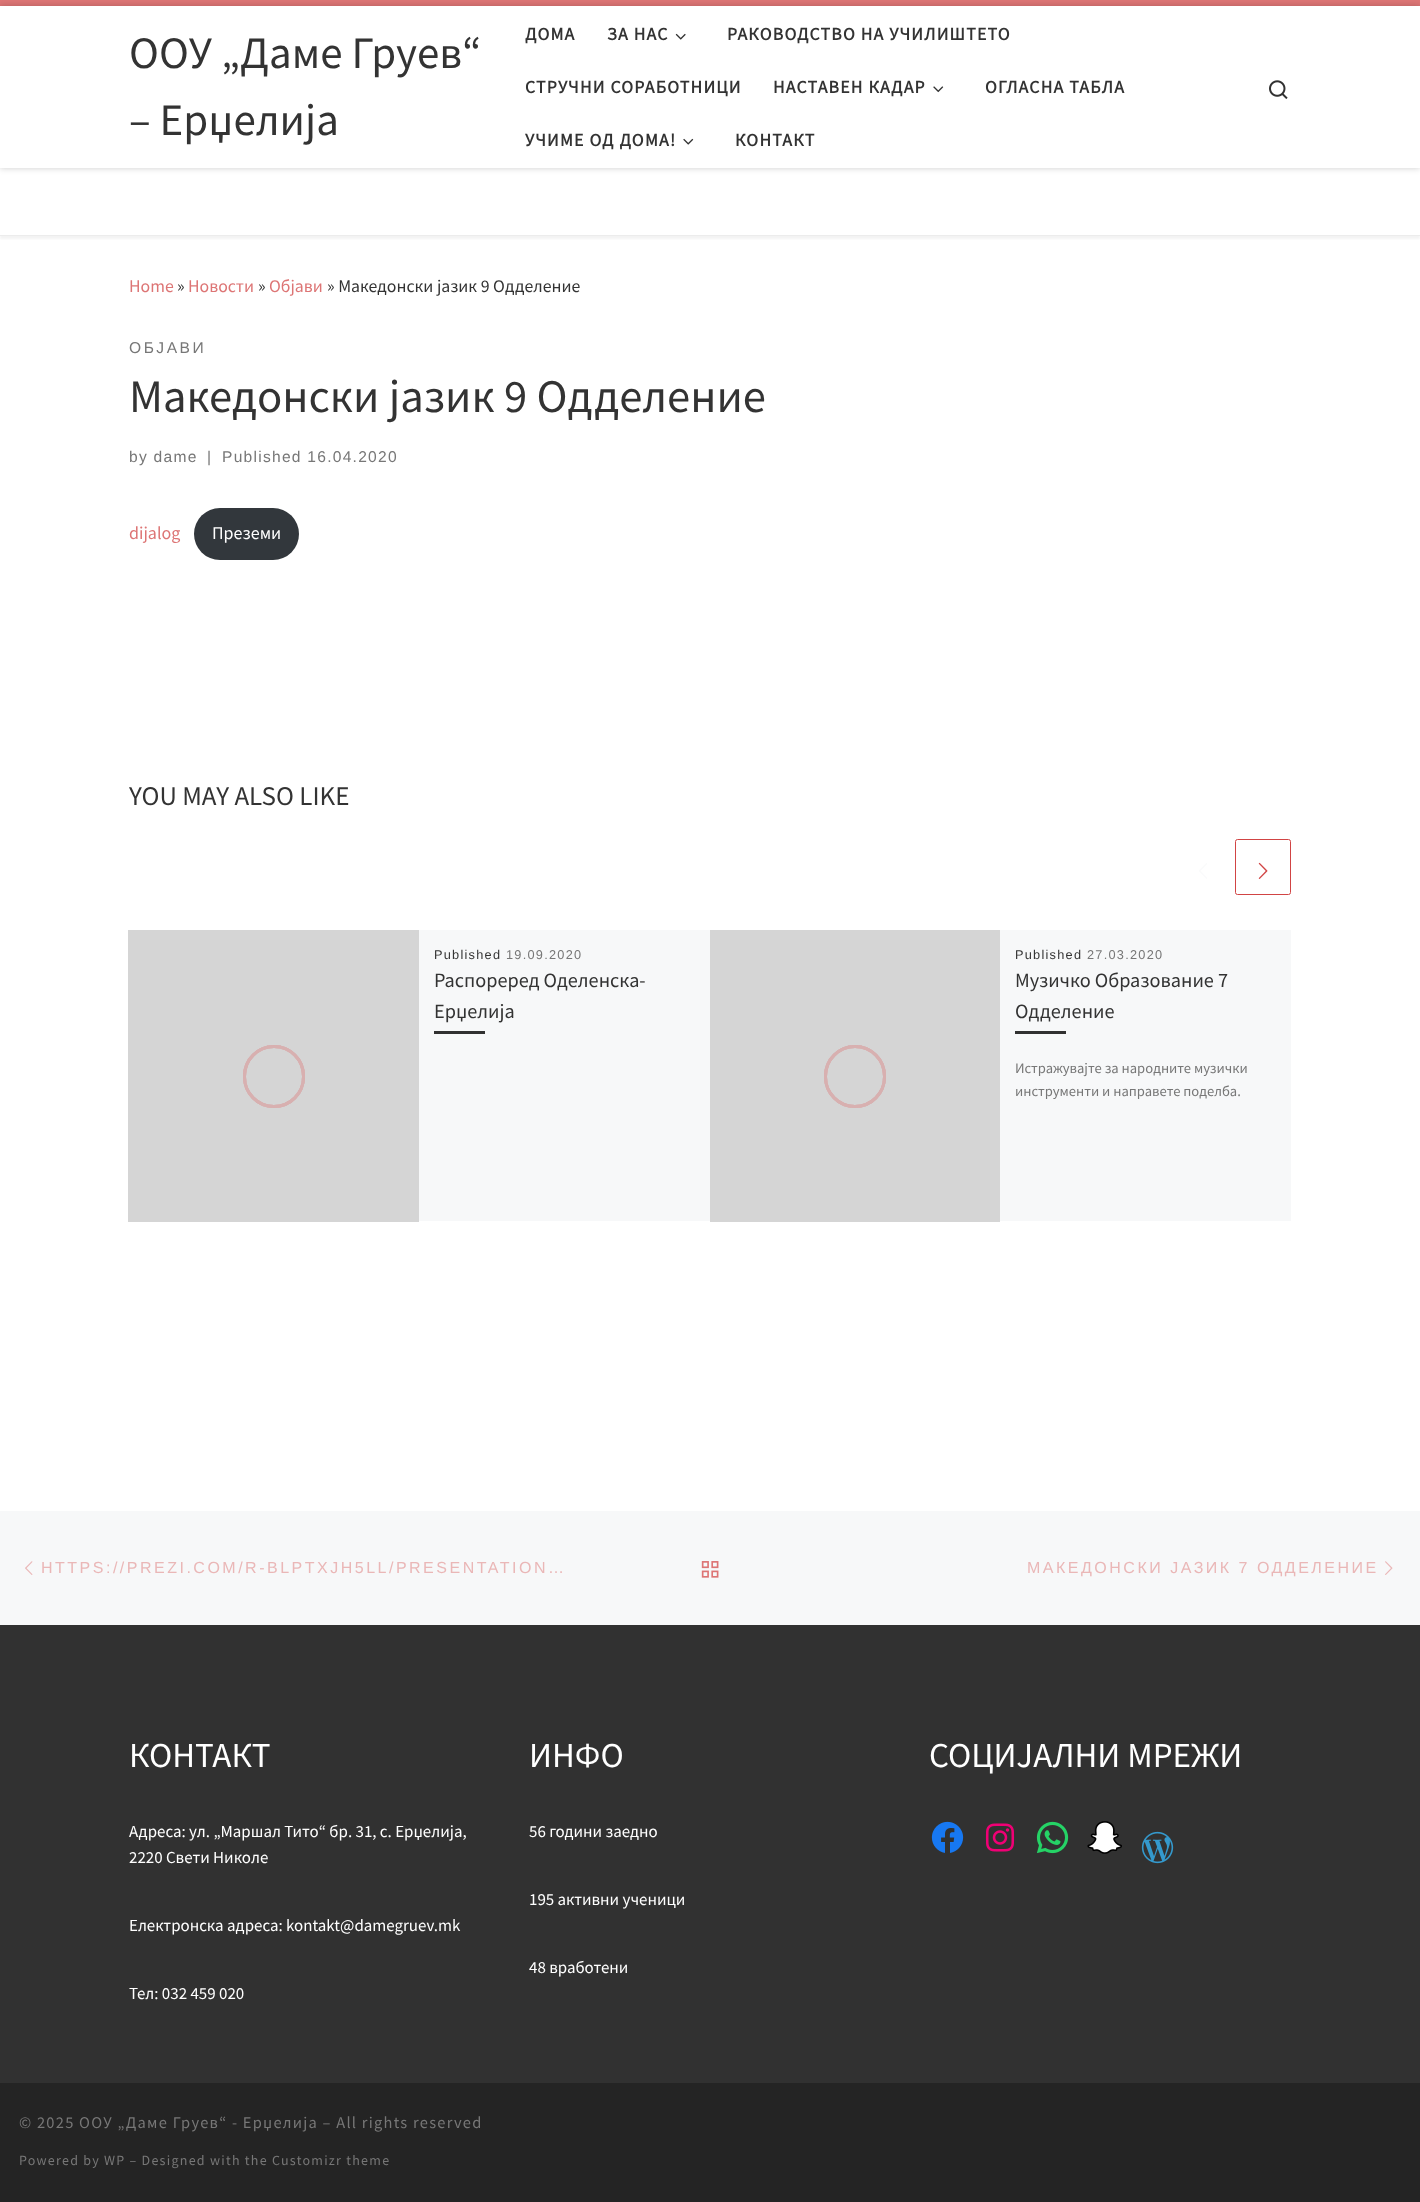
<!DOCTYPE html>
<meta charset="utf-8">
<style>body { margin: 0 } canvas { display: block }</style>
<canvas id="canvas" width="1420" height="2202"></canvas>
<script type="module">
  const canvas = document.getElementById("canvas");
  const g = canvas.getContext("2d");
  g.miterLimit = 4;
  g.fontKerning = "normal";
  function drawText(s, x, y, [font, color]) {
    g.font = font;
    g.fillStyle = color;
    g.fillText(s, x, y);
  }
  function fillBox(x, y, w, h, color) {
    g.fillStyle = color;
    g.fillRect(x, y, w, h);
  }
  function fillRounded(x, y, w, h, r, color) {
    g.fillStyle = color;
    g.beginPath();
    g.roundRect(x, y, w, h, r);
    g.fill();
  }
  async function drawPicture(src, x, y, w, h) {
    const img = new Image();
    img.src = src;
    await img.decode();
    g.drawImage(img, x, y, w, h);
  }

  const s1 = ["45px Source Sans Pro", "#333333"];
  const s2 = ["bold 17.75px Source Sans Pro", "#333333"];
  const s3 = ["17.75px Source Sans Pro", "#DD7575"];
  const s4 = ["17.75px Source Sans Pro", "#333333"];
  const s5 = ["15.6px Liberation Sans", "#777777"];
  const s6 = ["46.7px Source Sans Pro", "#333333"];
  const s7 = ["18px Source Sans Pro", "#DD7575"];
  const s8 = ["18px Source Sans Pro", "#FFFFFF"];
  const s9 = ["27px Source Sans Pro", "#333333"];
  const s10 = ["12.75px Liberation Sans", "#333333"];
  const s11 = ["12.75px Liberation Sans", "#777777"];
  const s12 = ["20.25px Source Sans Pro", "#333333"];
  const s13 = ["14.6px Source Sans Pro", "#777777"];
  const s14 = ["16px Liberation Sans", "#EAB7B7"];
  const s15 = ["35px Source Sans Pro", "#FFFFFF"];
  const s16 = ["16.9px Source Sans Pro", "#FFFFFF"];
  const s17 = ["16.4px Source Sans Pro", "#777777"];
  const s18 = ["14px Source Sans Pro", "#777777"];

  fillBox(0, 0, 1420, 2202, "#FFFFFF");
  g.save();
  g.beginPath();
  g.rect(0, 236, 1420, 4);
  g.clip();
  g.fillStyle = "rgba(102, 102, 102, 0.08)";
  g.filter = "blur(1px)";
  g.beginPath();
  g.rect(0, 3, 1420, 236);
  g.fill();
  g.filter = "none";
  g.restore();
  fillBox(0, 0, 1420, 6, "#DD7575");
  fillBox(0, 235, 1420, 1, "#ECECEC");
  g.fillStyle = "rgba(0, 0, 0, 0.2)";
  g.filter = "blur(3px)";
  g.beginPath();
  g.rect(0, 6, 1420, 162);
  g.fill();
  g.filter = "none";
  fillBox(0, 6, 1420, 162, "#FFFFFF");
  drawText("ООУ „Даме Груев“", 129, 68, s1);
  drawText("– Ерџелија", 129, 135, s1);
  g.letterSpacing = "1.25px";
  drawText("ДОМА", 525, 40, s2);
  drawText("ЗА НАС", 607, 40, s2);
  await drawPicture("pic1.png", 675, 33, 11, 7);
  drawText("РАКОВОДСТВО НА УЧИЛИШТЕТО", 727, 40, s2);
  drawText("СТРУЧНИ СОРАБОТНИЦИ", 525, 93, s2);
  drawText("НАСТАВЕН КАДАР", 773, 93, s2);
  await drawPicture("pic2.png", 933, 86, 11, 7);
  drawText("ОГЛАСНА ТАБЛА", 985, 93, s2);
  drawText("УЧИМЕ ОД ДОМА!", 525, 146, s2);
  await drawPicture("pic3.png", 683, 138, 11, 7);
  drawText("КОНТАКТ", 735, 146, s2);
  await drawPicture("pic4.png", 1269, 80, 19, 19);
  g.letterSpacing = "0px";
  drawText("Home", 129, 292, s3);
  drawText("»", 177, 292, s4);
  drawText("Новости", 188, 292, s3);
  drawText("»", 258, 292, s4);
  drawText("Објави", 269, 292, s3);
  drawText("» Македонски јазик 9 Одделение", 327, 292, s4);
  g.letterSpacing = "2.5px";
  drawText("ОБЈАВИ", 129, 353, s5);
  g.letterSpacing = "0px";
  drawText("Македонски јазик 9 Одделение", 129, 412, s6);
  g.letterSpacing = "1.25px";
  drawText("by dame", 129, 462, s5);
  drawText("|", 207, 462, s5);
  drawText("Published 16.04.2020", 222, 462, s5);
  g.letterSpacing = "0px";
  drawText("dijalog", 129, 539, s7);
  fillRounded(194, 508, 105, 52, 26, "#32373C");
  drawText("Преземи", 212, 539, s8);
  drawText("YOU MAY ALSO LIKE", 129, 805, s9);
  await drawPicture("pic5.png", 1199, 863, 8, 16);
  g.beginPath();
  g.roundRect(1235.5, 839.5, 55, 55, 2);
  g.strokeStyle = "#D14444";
  g.stroke();
  await drawPicture("pic6.png", 1258, 862, 10, 17);
  fillBox(419, 930, 291, 291, "#F7F8F9");
  fillBox(128, 930, 291, 292, "#D5D5D5");
  g.beginPath();
  g.roundRect(244.5, 1046.5, 59, 60, 29.5);
  g.strokeStyle = "#D8B0B0";
  g.lineWidth = 3;
  g.stroke();
  g.beginPath();
  g.roundRect(244.5, 1046.5, 59, 60, 29.5);
  g.stroke();
  g.beginPath();
  g.roundRect(244.5, 1046.5, 59, 60, 29.5);
  g.stroke();
  g.letterSpacing = "1.25px";
  drawText("Published", 434, 959, s10);
  drawText("19.09.2020", 506, 959, s11);
  g.letterSpacing = "0px";
  drawText("Распореред Оделенска-", 434, 987, s12);
  drawText("Ерџелија", 434, 1018, s12);
  fillBox(434, 1031, 51, 3, "#313131");
  fillBox(1000, 930, 291, 291, "#F7F8F9");
  fillBox(710, 930, 290, 292, "#D5D5D5");
  g.beginPath();
  g.roundRect(825.5, 1046.5, 59, 60, 29.5);
  g.stroke();
  g.beginPath();
  g.roundRect(825.5, 1046.5, 59, 60, 29.5);
  g.stroke();
  g.beginPath();
  g.roundRect(825.5, 1046.5, 59, 60, 29.5);
  g.stroke();
  g.letterSpacing = "1.25px";
  drawText("Published", 1015, 959, s10);
  drawText("27.03.2020", 1087, 959, s11);
  g.letterSpacing = "0px";
  drawText("Музичко Образование 7", 1015, 987, s12);
  drawText("Одделение", 1015, 1018, s12);
  fillBox(1015, 1031, 51, 3, "#313131");
  drawText("Истражувајте за народните музички", 1015, 1073, s13);
  drawText("инструменти и направете поделба.", 1015, 1096, s13);
  fillBox(0, 1511, 1420, 114, "#F7F8F9");
  await drawPicture("pic7.png", 25, 1561, 8, 14);
  g.letterSpacing = "2.5px";
  drawText("HTTPS://PREZI.COM/R-BLPTXJH5LL/PRESENTATION…", 41, 1573, s14);
  await drawPicture("pic8.png", 701, 1561, 18, 17);
  drawText("МАКЕДОНСКИ ЈАЗИК 7 ОДДЕЛЕНИЕ", 1027, 1573, s14);
  await drawPicture("pic9.png", 1385, 1561, 8, 14);
  fillBox(0, 1625, 1420, 458, "#313131");
  g.letterSpacing = "0px";
  drawText("КОНТАКТ", 129, 1767, s15);
  drawText("Адреса: ул. „Маршал Тито“ бр. 31, с. Ерџелија,", 129, 1837, s16);
  drawText("2220 Свети Николе", 129, 1863, s16);
  drawText("Електронска адреса: kontakt@damegruev.mk", 129, 1931, s16);
  drawText("Тел: 032 459 020", 129, 1999, s16);
  drawText("ИНФО", 529, 1767, s15);
  drawText("56 години заедно", 529, 1837, s16);
  drawText("195 активни ученици", 529, 1905, s16);
  drawText("48 вработени", 529, 1973, s16);
  drawText("СОЦИЈАЛНИ МРЕЖИ", 929, 1767, s15);
  await drawPicture("pic10.png", 931, 1821, 33, 32);
  await drawPicture("pic11.png", 985, 1823, 30, 29);
  await drawPicture("pic12.png", 1036, 1821, 33, 33);
  await drawPicture("pic13.png", 1087, 1821, 35, 33);
  await drawPicture("pic14.png", 1141, 1831, 33, 33);
  fillBox(0, 2083, 1420, 119, "#242424");
  g.letterSpacing = "1.25px";
  drawText("© 2025 ООУ „Даме Груев“ - Ерџелија – All rights reserved", 19, 2128, s17);
  drawText("Powered by WP – Designed with the Customizr theme", 19, 2165, s18);
</script>
